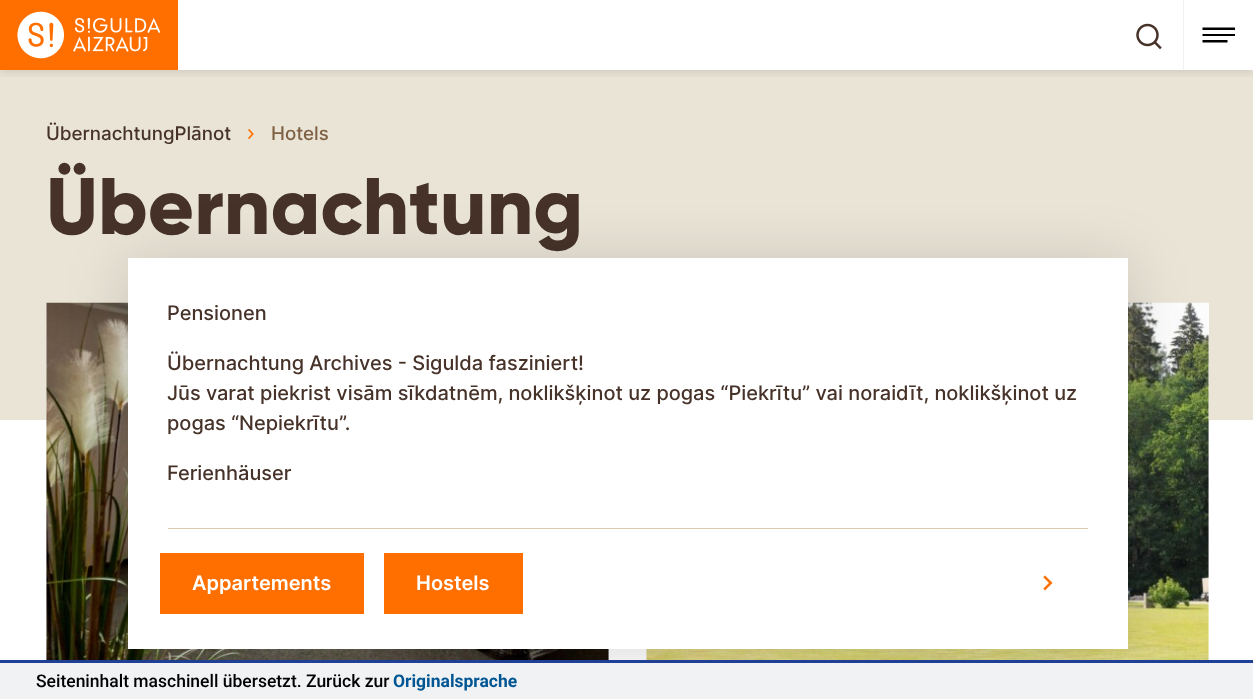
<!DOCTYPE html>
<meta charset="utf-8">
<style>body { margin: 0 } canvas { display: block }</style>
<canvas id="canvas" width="1253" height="699"></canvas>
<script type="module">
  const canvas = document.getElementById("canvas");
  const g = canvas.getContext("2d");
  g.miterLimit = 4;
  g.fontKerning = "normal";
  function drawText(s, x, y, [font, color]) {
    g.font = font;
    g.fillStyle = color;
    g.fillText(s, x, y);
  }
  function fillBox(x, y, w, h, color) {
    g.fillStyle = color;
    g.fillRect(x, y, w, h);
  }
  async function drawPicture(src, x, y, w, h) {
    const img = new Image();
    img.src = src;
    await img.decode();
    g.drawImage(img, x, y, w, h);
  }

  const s1 = ["500 18.75px Inter", "#463229"];
  const s2 = ["500 18.75px Inter", "#7E6043"];
  const s3 = ["800 80px Gilroy", "#463229"];
  const s4 = ["500 20px Inter", "#463229"];
  const s5 = ["600 20px Inter", "#FFFFFF"];
  const s6 = ["500 17.5px Roboto", "#000000"];
  const s7 = ["bold 17.5px Roboto", "#005693"];

  fillBox(0, 0, 1253, 699, "#FFFFFF");
  fillBox(0, 70, 1253, 350, "#E9E4D6");
  g.save();
  g.beginPath();
  g.rect(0, 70, 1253, 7);
  g.clip();
  g.fillStyle = "rgba(0, 0, 0, 0.1)";
  g.filter = "blur(5px)";
  g.beginPath();
  g.rect(0, 3, 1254, 70);
  g.fill();
  g.filter = "none";
  g.restore();
  await drawPicture("pic1.png", 0, 0, 178, 70);
  await drawPicture("pic2.png", 1136, 23, 26, 27);
  fillBox(1183, 0, 1, 70, "#F1F1F1");
  g.fillStyle = "#000000";
  g.beginPath();
  g.moveTo(1202.5, 34);
  g.lineTo(1202.5, 36);
  g.lineTo(1235, 36);
  g.lineTo(1235, 34);
  g.closePath();
  g.moveTo(1202.5, 27.5);
  g.lineTo(1202.5, 30);
  g.lineTo(1235, 30);
  g.lineTo(1235, 27.5);
  g.closePath();
  g.moveTo(1202.5, 40);
  g.lineTo(1202.5, 42.5);
  g.lineTo(1227.5, 42.5);
  g.lineTo(1227.5, 40);
  g.closePath();
  g.fill();
  drawText("ÜbernachtungPlānot", 46, 140, s1);
  await drawPicture("pic3.png", 248, 129, 6, 11);
  drawText("Hotels", 271, 140, s2);
  drawText("Übernachtung", 46, 234, s3);
  fillBox(46, 303, 563, 117, "#FFFFFF");
  await drawPicture("pic4.png", 46, 302, 563, 358);
  fillBox(646, 303, 563, 117, "#FFFFFF");
  await drawPicture("pic5.png", 646, 302, 563, 358);
  g.fillStyle = "rgba(0, 0, 0, 0.15)";
  g.filter = "blur(30px)";
  g.beginPath();
  g.rect(128, 263, 1000, 391);
  g.fill();
  g.filter = "none";
  fillBox(128, 258, 1000, 391, "#FFFFFF");
  fillBox(168, 528, 920, 1, "#D7CAB1");
  drawText("Pensionen", 167, 320, s4);
  drawText("Übernachtung Archives - Sigulda fasziniert!", 167, 370, s4);
  drawText("Jūs varat piekrist visām sīkdatnēm, noklikšķinot uz pogas “Piekrītu” vai noraidīt, noklikšķinot uz", 167, 400, s4);
  drawText("pogas “Nepiekrītu”.", 167, 430, s4);
  drawText("Ferienhäuser", 167, 480, s4);
  fillBox(160, 553, 204, 61, "#FF6F00");
  drawText("Appartements", 192, 590, s5);
  fillBox(384, 553, 139, 61, "#FF6F00");
  drawText("Hostels", 416, 590, s5);
  await drawPicture("pic6.png", 1043, 575, 10, 16);
  fillBox(0, 660, 1253, 3, "#1F4094");
  fillBox(0, 663, 1253, 36, "#F0F2F4");
  drawText("Seiteninhalt maschinell übersetzt.", 36, 687, s6);
  drawText("Zurück zur", 306, 687, s6);
  drawText("Originalsprache", 393, 687, s7);
</script>
